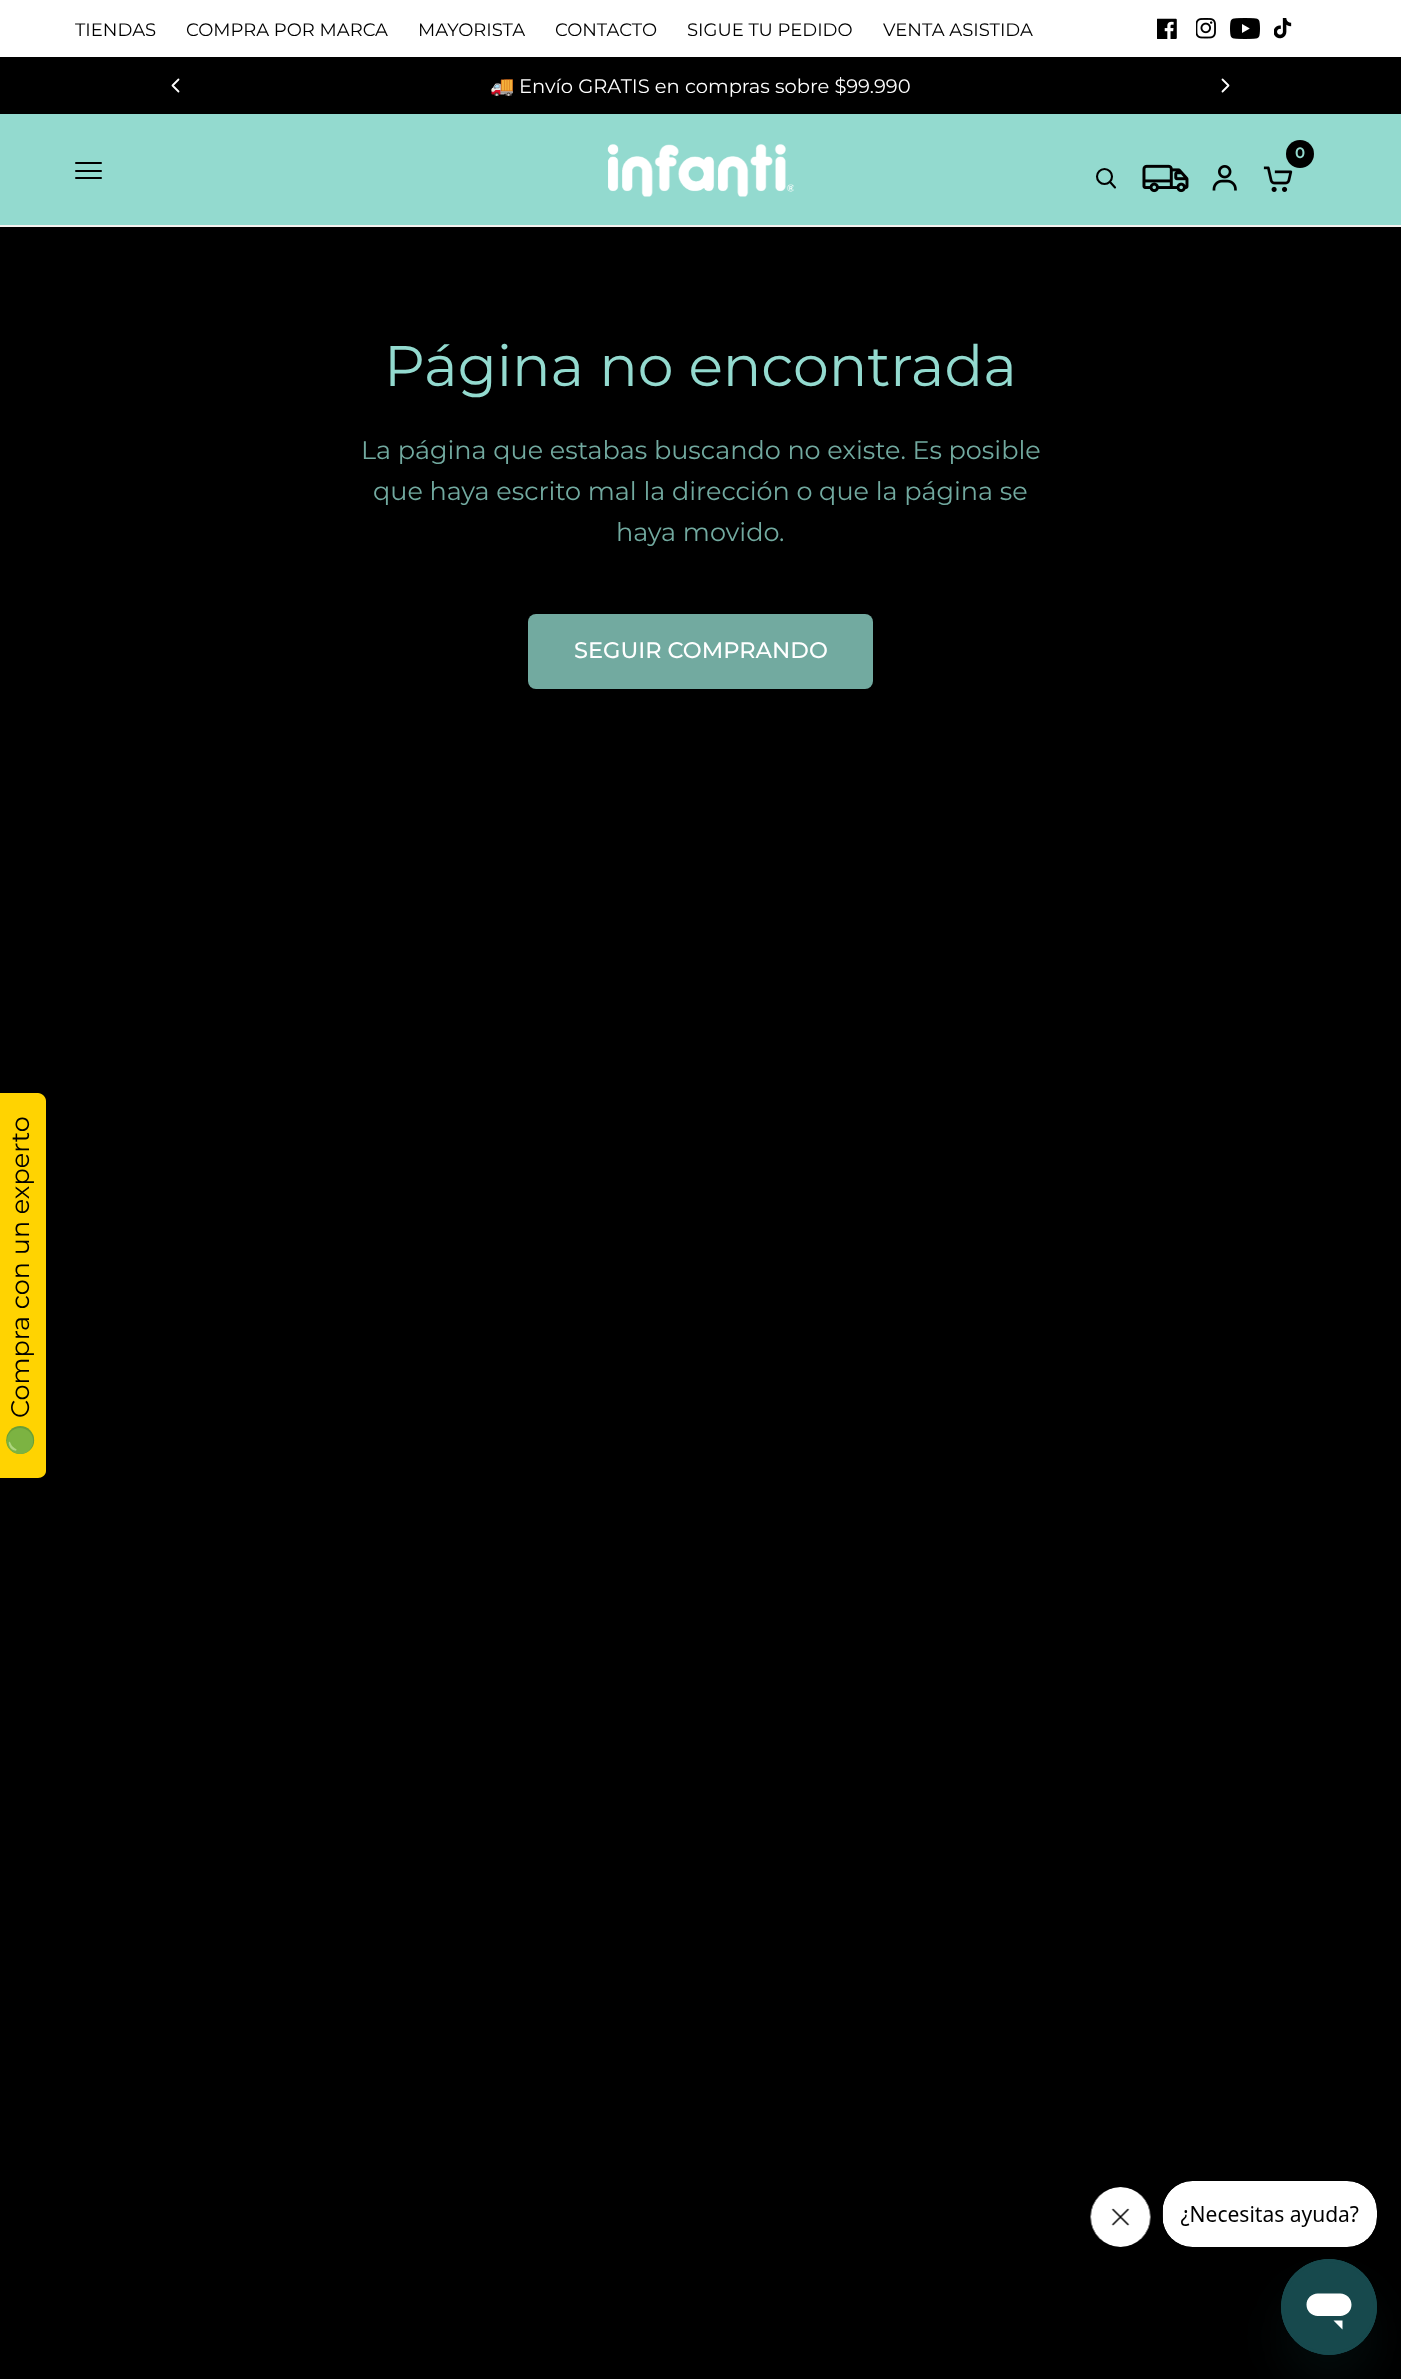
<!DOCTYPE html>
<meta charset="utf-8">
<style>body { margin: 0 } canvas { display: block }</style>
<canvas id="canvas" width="1401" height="2379"></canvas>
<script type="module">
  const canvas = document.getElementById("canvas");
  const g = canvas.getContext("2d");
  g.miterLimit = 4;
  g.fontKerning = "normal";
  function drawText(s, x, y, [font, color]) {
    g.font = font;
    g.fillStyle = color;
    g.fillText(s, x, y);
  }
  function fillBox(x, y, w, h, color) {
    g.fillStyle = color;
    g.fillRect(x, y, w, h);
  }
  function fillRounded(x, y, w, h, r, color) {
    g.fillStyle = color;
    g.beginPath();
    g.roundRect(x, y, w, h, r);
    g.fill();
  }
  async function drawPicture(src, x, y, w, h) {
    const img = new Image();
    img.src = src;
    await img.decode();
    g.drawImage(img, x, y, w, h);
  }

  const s1 = ["18px Montserrat", "#000000"];
  const s2 = ["19.5px Noto Color Emoji", "#FFFFFF"];
  const s3 = ["19.5px Montserrat", "#FFFFFF"];
  const s4 = ["600 15px Montserrat", "#93DACF"];
  const s5 = ["57px Montserrat", "#93DACF"];
  const s6 = ["25.5px Montserrat", "#72AAA0"];
  const s7 = ["500 22.5px Montserrat", "#FFFFFF"];

  fillBox(0, 0, 1401, 2379, "#000000");
  fillBox(0, 0, 1401, 57, "#FFFFFF");
  drawText("TIENDAS", 75, 36, s1);
  drawText("COMPRA POR MARCA", 186, 36, s1);
  drawText("MAYORISTA", 418, 36, s1);
  drawText("CONTACTO", 555, 36, s1);
  drawText("SIGUE TU PEDIDO", 687, 36, s1);
  drawText("VENTA ASISTIDA", 883, 36, s1);
  await drawPicture("pic1.png", 1157, 18, 20, 21);
  await drawPicture("pic2.png", 1196, 18, 20, 21);
  await drawPicture("pic3.png", 1230, 18, 30, 21);
  await drawPicture("pic4.png", 1274, 18, 18, 21);
  g.beginPath();
  g.moveTo(178.5, 79.5);
  g.lineTo(172.5, 85.5);
  g.lineTo(178.5, 91.5);
  g.strokeStyle = "#FFFFFF";
  g.lineWidth = 1.8;
  g.lineCap = "round";
  g.lineJoin = "round";
  g.stroke();
  g.save();
  g.beginPath();
  g.rect(176, 75, 1050, 21);
  g.clip();
  drawText("🚚", 490, 93, s2);
  g.restore();
  drawText("Envío GRATIS en compras sobre $99.990", 519, 93, s3);
  g.beginPath();
  g.moveTo(1222.5, 79.5);
  g.lineTo(1228.5, 85.5);
  g.lineTo(1222.5, 91.5);
  g.stroke();
  fillBox(0, 114, 1401, 111, "#93DACF");
  await drawPicture("pic5.png", 607, 144, 187, 53);
  await drawPicture("pic6.png", 1263, 166, 30, 26);
  g.fillStyle = "#000000";
  g.beginPath();
  g.arc(1300, 154, 14, 0, Math.PI * 2);
  g.fill();
  drawText("0", 1295, 158, s4);
  g.beginPath();
  g.arc(1104.5, 176.5, 7.5, 0, Math.PI * 2);
  g.strokeStyle = "#000000";
  g.lineWidth = 2.1;
  g.stroke();
  g.beginPath();
  g.moveTo(1115, 187.5);
  g.lineTo(1110.5, 182.5);
  g.lineJoin = "miter";
  g.stroke();
  await drawPicture("pic7.png", 1142, 164, 47, 29);
  await drawPicture("pic8.png", 1212, 165, 25, 26);
  fillRounded(75, 162, 27, 2, 1, "#000000");
  fillRounded(75, 170, 27, 2, 1, "#000000");
  fillRounded(75, 177, 27, 2, 1, "#000000");
  fillBox(0, 225, 1401, 2, "#F4F2F0");
  drawText("Página no encontrada", 384, 386, s5);
  drawText("La página que estabas buscando no existe. Es posible", 361, 459, s6);
  drawText("que haya escrito mal la dirección o que la página se", 373, 500, s6);
  drawText("haya movido.", 616, 541, s6);
  fillRounded(528, 614, 345, 75, 8, "#72AAA0");
  drawText("SEGUIR COMPRANDO", 574, 658, s7);
  g.fillStyle = "#FFD301";
  g.beginPath();
  g.moveTo(-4, 1478);
  g.lineTo(-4, 1093);
  g.lineTo(38, 1093);
  g.bezierCurveTo(42, 1093, 46, 1097, 46, 1101);
  g.lineTo(46, 1471);
  g.bezierCurveTo(46, 1475, 42, 1478, 38, 1478);
  g.closePath();
  g.fill();
  g.font = "25.5px Montserrat";
  g.fillStyle = "#000000";
  g.save();
  g.translate(29, 1418);
  g.rotate(-90 * Math.PI / 180);
  g.fillText("Compra con un experto", 0, 0);
  g.restore();
  g.font = "25.5px Noto Color Emoji";
  g.save();
  g.translate(29, 1456);
  g.rotate(-90 * Math.PI / 180);
  g.fillText("🟢", 0, 0);
  g.restore();
  await drawPicture("pic9.png", 1090, 2187, 61, 60);
  await drawPicture("pic10.png", 1162, 2181, 215, 66);
  g.fillStyle = "rgba(23, 73, 77, 0.15)";
  g.filter = "blur(22.5px)";
  g.beginPath();
  g.roundRect(1281, 2289, 96, 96, 48);
  g.fill();
  g.filter = "none";
  await drawPicture("pic11.png", 1281, 2259, 96, 96);
</script>
